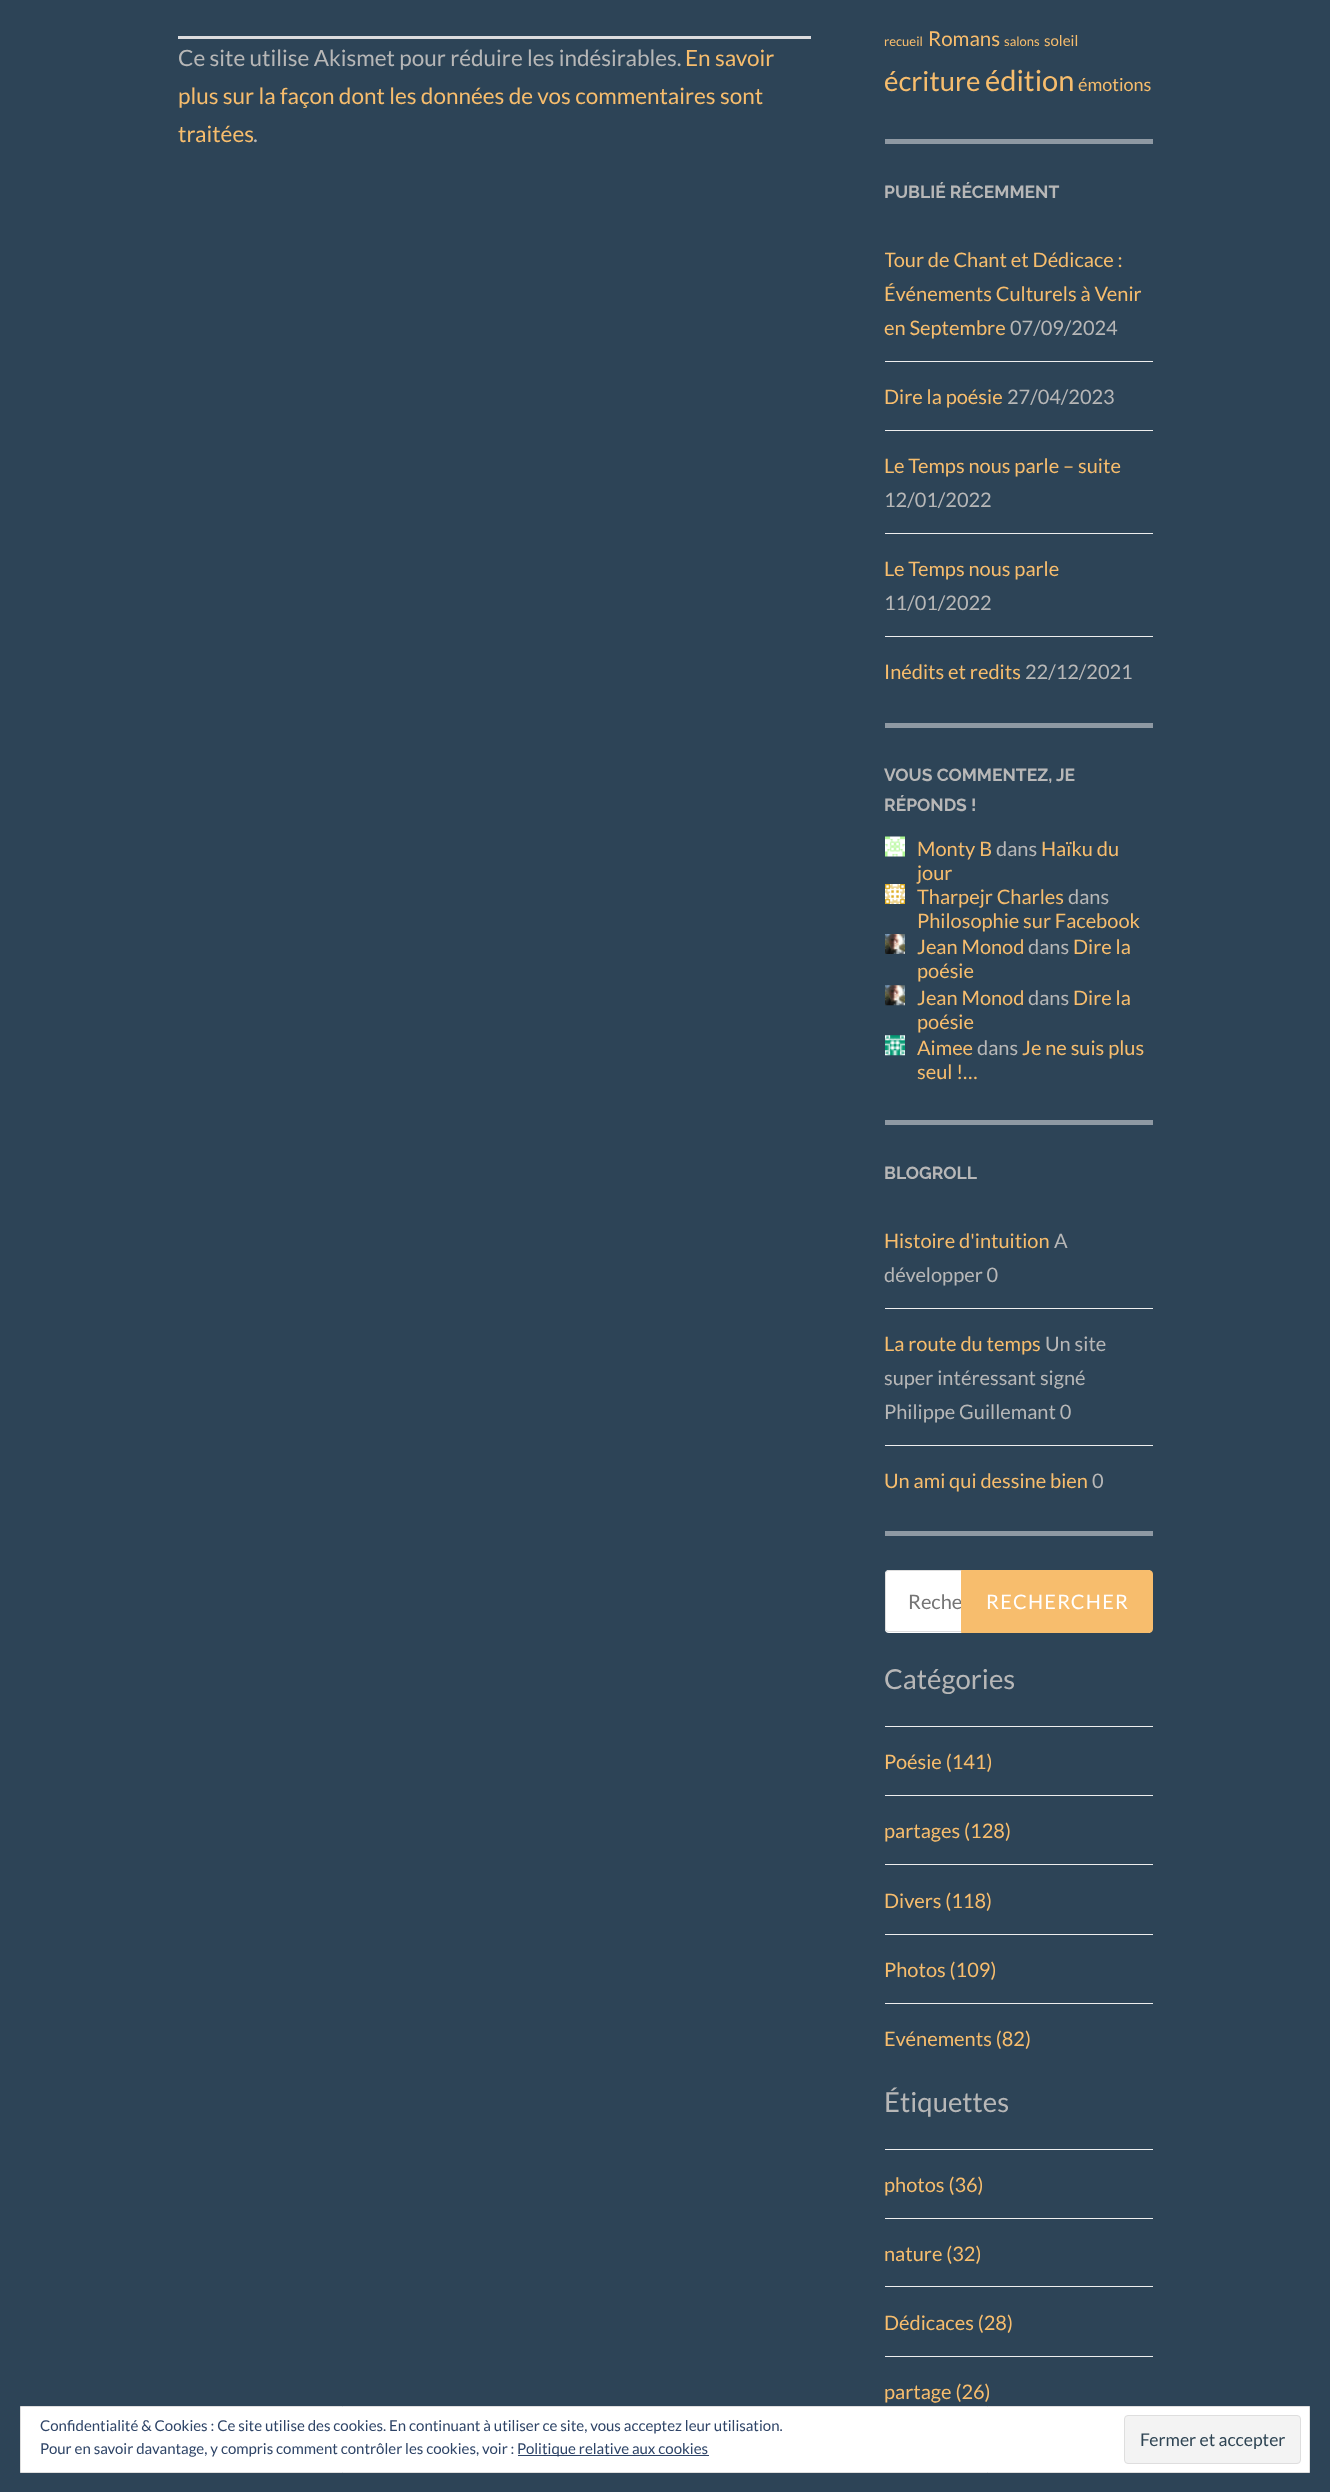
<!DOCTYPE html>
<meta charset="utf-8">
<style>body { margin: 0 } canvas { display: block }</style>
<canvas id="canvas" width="1330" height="2492"></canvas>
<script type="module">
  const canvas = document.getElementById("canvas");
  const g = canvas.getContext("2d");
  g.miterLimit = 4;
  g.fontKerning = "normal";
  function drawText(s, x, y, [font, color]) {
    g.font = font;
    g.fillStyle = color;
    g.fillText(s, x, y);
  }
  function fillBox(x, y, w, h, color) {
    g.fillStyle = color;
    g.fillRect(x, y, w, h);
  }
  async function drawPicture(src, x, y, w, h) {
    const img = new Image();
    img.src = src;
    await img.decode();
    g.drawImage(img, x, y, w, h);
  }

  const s1 = ["22.5px Lato", "#B7B7B7"];
  const s2 = ["22.5px Lato", "#F7BD6D"];
  const s3 = ["13px Lato", "#F7BD6D"];
  const s4 = ["20.5px Lato", "#F7BD6D"];
  const s5 = ["15px Lato", "#F7BD6D"];
  const s6 = ["27.5px Lato", "#F7BD6D"];
  const s7 = ["29px Lato", "#F7BD6D"];
  const s8 = ["18px Lato", "#F7BD6D"];
  const s9 = ["bold 17.5px Raleway", "#B7B7B7"];
  const s10 = ["20px Lato", "#F7BD6D"];
  const s11 = ["20px Lato", "#B7B7B7"];
  const s12 = ["20px Lato", "#757575"];
  const s13 = ["20px Lato", "#FFFFFF"];
  const s14 = ["27.5px Lato", "#B7B7B7"];
  const s15 = ["15px Lato", "#2E4467"];
  const s16 = ["17.5px Lato", "#2E4453"];

  fillBox(0, 0, 1330, 2492, "#2D4457");
  fillBox(178, 36, 633, 3, "#DCDCDE");
  drawText("Ce site utilise Akismet pour réduire les indésirables.", 178, 66, s1);
  drawText("En savoir", 685, 66, s2);
  drawText("plus sur la façon dont les données de vos commentaires sont", 178, 104, s2);
  drawText("traitées", 178, 142, s2);
  drawText(".", 253, 142, s1);
  fillBox(885, 139, 268, 5, "#8E99A3");
  drawText("recueil", 884, 46, s3);
  drawText("Romans", 928, 46, s4);
  drawText("salons", 1004, 46, s3);
  drawText("soleil", 1044, 46, s5);
  drawText("écriture", 884, 91, s6);
  drawText("édition", 985, 91, s7);
  drawText("émotions", 1078, 91, s8);
  fillBox(885, 723, 268, 5, "#8E99A3");
  drawText("PUBLIÉ RÉCEMMENT", 884, 198, s9);
  g.save();
  g.beginPath();
  g.rect(885, 0, 268, 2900);
  g.clip();
  drawText("Tour de Chant et Dédicace :", 884, 267, s10);
  g.restore();
  drawText("Événements Culturels à Venir", 884, 301, s10);
  drawText("en Septembre", 884, 335, s10);
  drawText("07/09/2024", 1010, 335, s11);
  fillBox(885, 361, 268, 1, "#EEEEEE");
  drawText("Dire la poésie", 884, 404, s10);
  drawText("27/04/2023", 1007, 404, s11);
  fillBox(885, 430, 268, 1, "#EEEEEE");
  drawText("Le Temps nous parle – suite", 884, 473, s10);
  drawText("12/01/2022", 884, 507, s11);
  fillBox(885, 533, 268, 1, "#EEEEEE");
  drawText("Le Temps nous parle", 884, 576, s10);
  drawText("11/01/2022", 884, 610, s11);
  fillBox(885, 636, 268, 1, "#EEEEEE");
  drawText("Inédits et redits", 884, 679, s10);
  drawText("22/12/2021", 1025, 679, s11);
  fillBox(885, 1120, 268, 5, "#8E99A3");
  drawText("VOUS COMMENTEZ, JE", 884, 781, s9);
  drawText("RÉPONDS !", 884, 811, s9);
  await drawPicture("pic1.png", 885, 836, 20, 21);
  drawText("Monty B", 917, 856, s10);
  drawText("dans", 996, 856, s11);
  drawText("Haïku du", 1041, 856, s10);
  drawText("jour", 917, 880, s10);
  await drawPicture("pic2.png", 885, 884, 20, 20);
  drawText("Tharpejr Charles", 917, 904, s10);
  drawText("dans", 1068, 904, s11);
  drawText("Philosophie sur Facebook", 917, 928, s10);
  await drawPicture("pic3.png", 885, 934, 20, 20);
  drawText("Jean Monod", 917, 954, s10);
  drawText("dans", 1028, 954, s11);
  drawText("Dire la", 1073, 954, s10);
  drawText("poésie", 917, 978, s10);
  await drawPicture("pic4.png", 885, 985, 20, 21);
  drawText("Jean Monod", 917, 1005, s10);
  drawText("dans", 1028, 1005, s11);
  drawText("Dire la", 1073, 1005, s10);
  drawText("poésie", 917, 1029, s10);
  await drawPicture("pic5.png", 885, 1035, 20, 21);
  drawText("Aimee", 917, 1055, s10);
  drawText("dans", 977, 1055, s11);
  drawText("Je ne suis plus", 1022, 1055, s10);
  drawText("seul !…", 917, 1079, s10);
  fillBox(885, 1531, 268, 5, "#8E99A3");
  drawText("BLOGROLL", 884, 1179, s9);
  drawText("Histoire d'intuition", 884, 1248, s10);
  drawText("A", 1054, 1248, s11);
  drawText("développer 0", 884, 1282, s11);
  fillBox(885, 1308, 268, 1, "#EEEEEE");
  drawText("La route du temps", 884, 1351, s10);
  drawText("Un site", 1045, 1351, s11);
  drawText("super intéressant signé", 884, 1385, s11);
  drawText("Philippe Guillemant 0", 884, 1419, s11);
  fillBox(885, 1445, 268, 1, "#EEEEEE");
  drawText("Un ami qui dessine bien", 884, 1488, s10);
  drawText("0", 1092, 1488, s11);
  g.fillStyle = "#FFFFFF";
  g.beginPath();
  g.roundRect(885, 1570, 265, 63, [4, 0, 0, 4]);
  g.fill();
  g.fillStyle = "#DDDDDD";
  g.beginPath();
  g.moveTo(889, 1570);
  g.lineTo(1150, 1570);
  g.lineTo(1150, 1632);
  g.lineTo(889, 1632);
  g.bezierCurveTo(887, 1632, 885, 1631, 885, 1629);
  g.lineTo(885, 1574);
  g.bezierCurveTo(885, 1572, 887, 1570, 889, 1570);
  g.closePath();
  g.moveTo(889, 1571);
  g.lineTo(1150, 1571);
  g.lineTo(1150, 1631);
  g.lineTo(889, 1631);
  g.bezierCurveTo(887, 1631, 886, 1630, 886, 1629);
  g.lineTo(886, 1574);
  g.bezierCurveTo(886, 1572, 887, 1571, 889, 1571);
  g.closePath();
  g.fill("evenodd");
  drawText("Reche", 908, 1609, s12);
  g.fillStyle = "#F7BD6D";
  g.beginPath();
  g.roundRect(961.5, 1570.5, 191, 62, [0, 3.5, 3.5, 0]);
  g.fill();
  g.strokeStyle = "#F7BD6D";
  g.stroke();
  g.letterSpacing = "1.25px";
  drawText("RECHERCHER", 986, 1609, s13);
  g.letterSpacing = "0px";
  drawText("Catégories", 884, 1689, s14);
  fillBox(885, 1726, 268, 1, "#EEEEEE");
  drawText("Poésie (141)", 884, 1769, s10);
  fillBox(885, 1795, 268, 1, "#EEEEEE");
  drawText("partages (128)", 884, 1838, s10);
  fillBox(885, 1864, 268, 1, "#EEEEEE");
  drawText("Divers (118)", 884, 1908, s10);
  fillBox(885, 1934, 268, 1, "#EEEEEE");
  drawText("Photos (109)", 884, 1977, s10);
  fillBox(885, 2003, 268, 1, "#EEEEEE");
  drawText("Evénements (82)", 884, 2046, s10);
  drawText("Étiquettes", 884, 2112, s14);
  fillBox(885, 2149, 268, 1, "#EEEEEE");
  drawText("photos (36)", 884, 2192, s10);
  fillBox(885, 2218, 268, 1, "#EEEEEE");
  drawText("nature (32)", 884, 2261, s10);
  fillBox(885, 2286, 268, 1, "#EEEEEE");
  drawText("Dédicaces (28)", 884, 2330, s10);
  fillBox(885, 2356, 268, 1, "#EEEEEE");
  drawText("partage (26)", 884, 2399, s10);
  g.fillStyle = "#FFFFFF";
  g.beginPath();
  g.rect(20.5, 2406.5, 1289, 66);
  g.fill();
  g.strokeStyle = "#DEDEDE";
  g.stroke();
  drawText("Confidentialité & Cookies : Ce site utilise des cookies. En continuant à utiliser ce site, vous acceptez leur utilisation.", 40, 2431, s15);
  drawText("Pour en savoir davantage, y compris comment contrôler les cookies, voir :", 40, 2454, s15);
  fillBox(518, 2455, 191, 1, "#2E4467");
  drawText("Politique relative aux cookies", 517, 2454, s15);
  g.fillStyle = "#F3F3F3";
  g.beginPath();
  g.roundRect(1124.5, 2415.5, 176, 48, 3.5);
  g.fill();
  g.stroke();
  drawText("Fermer et accepter", 1140, 2446, s16);
</script>
